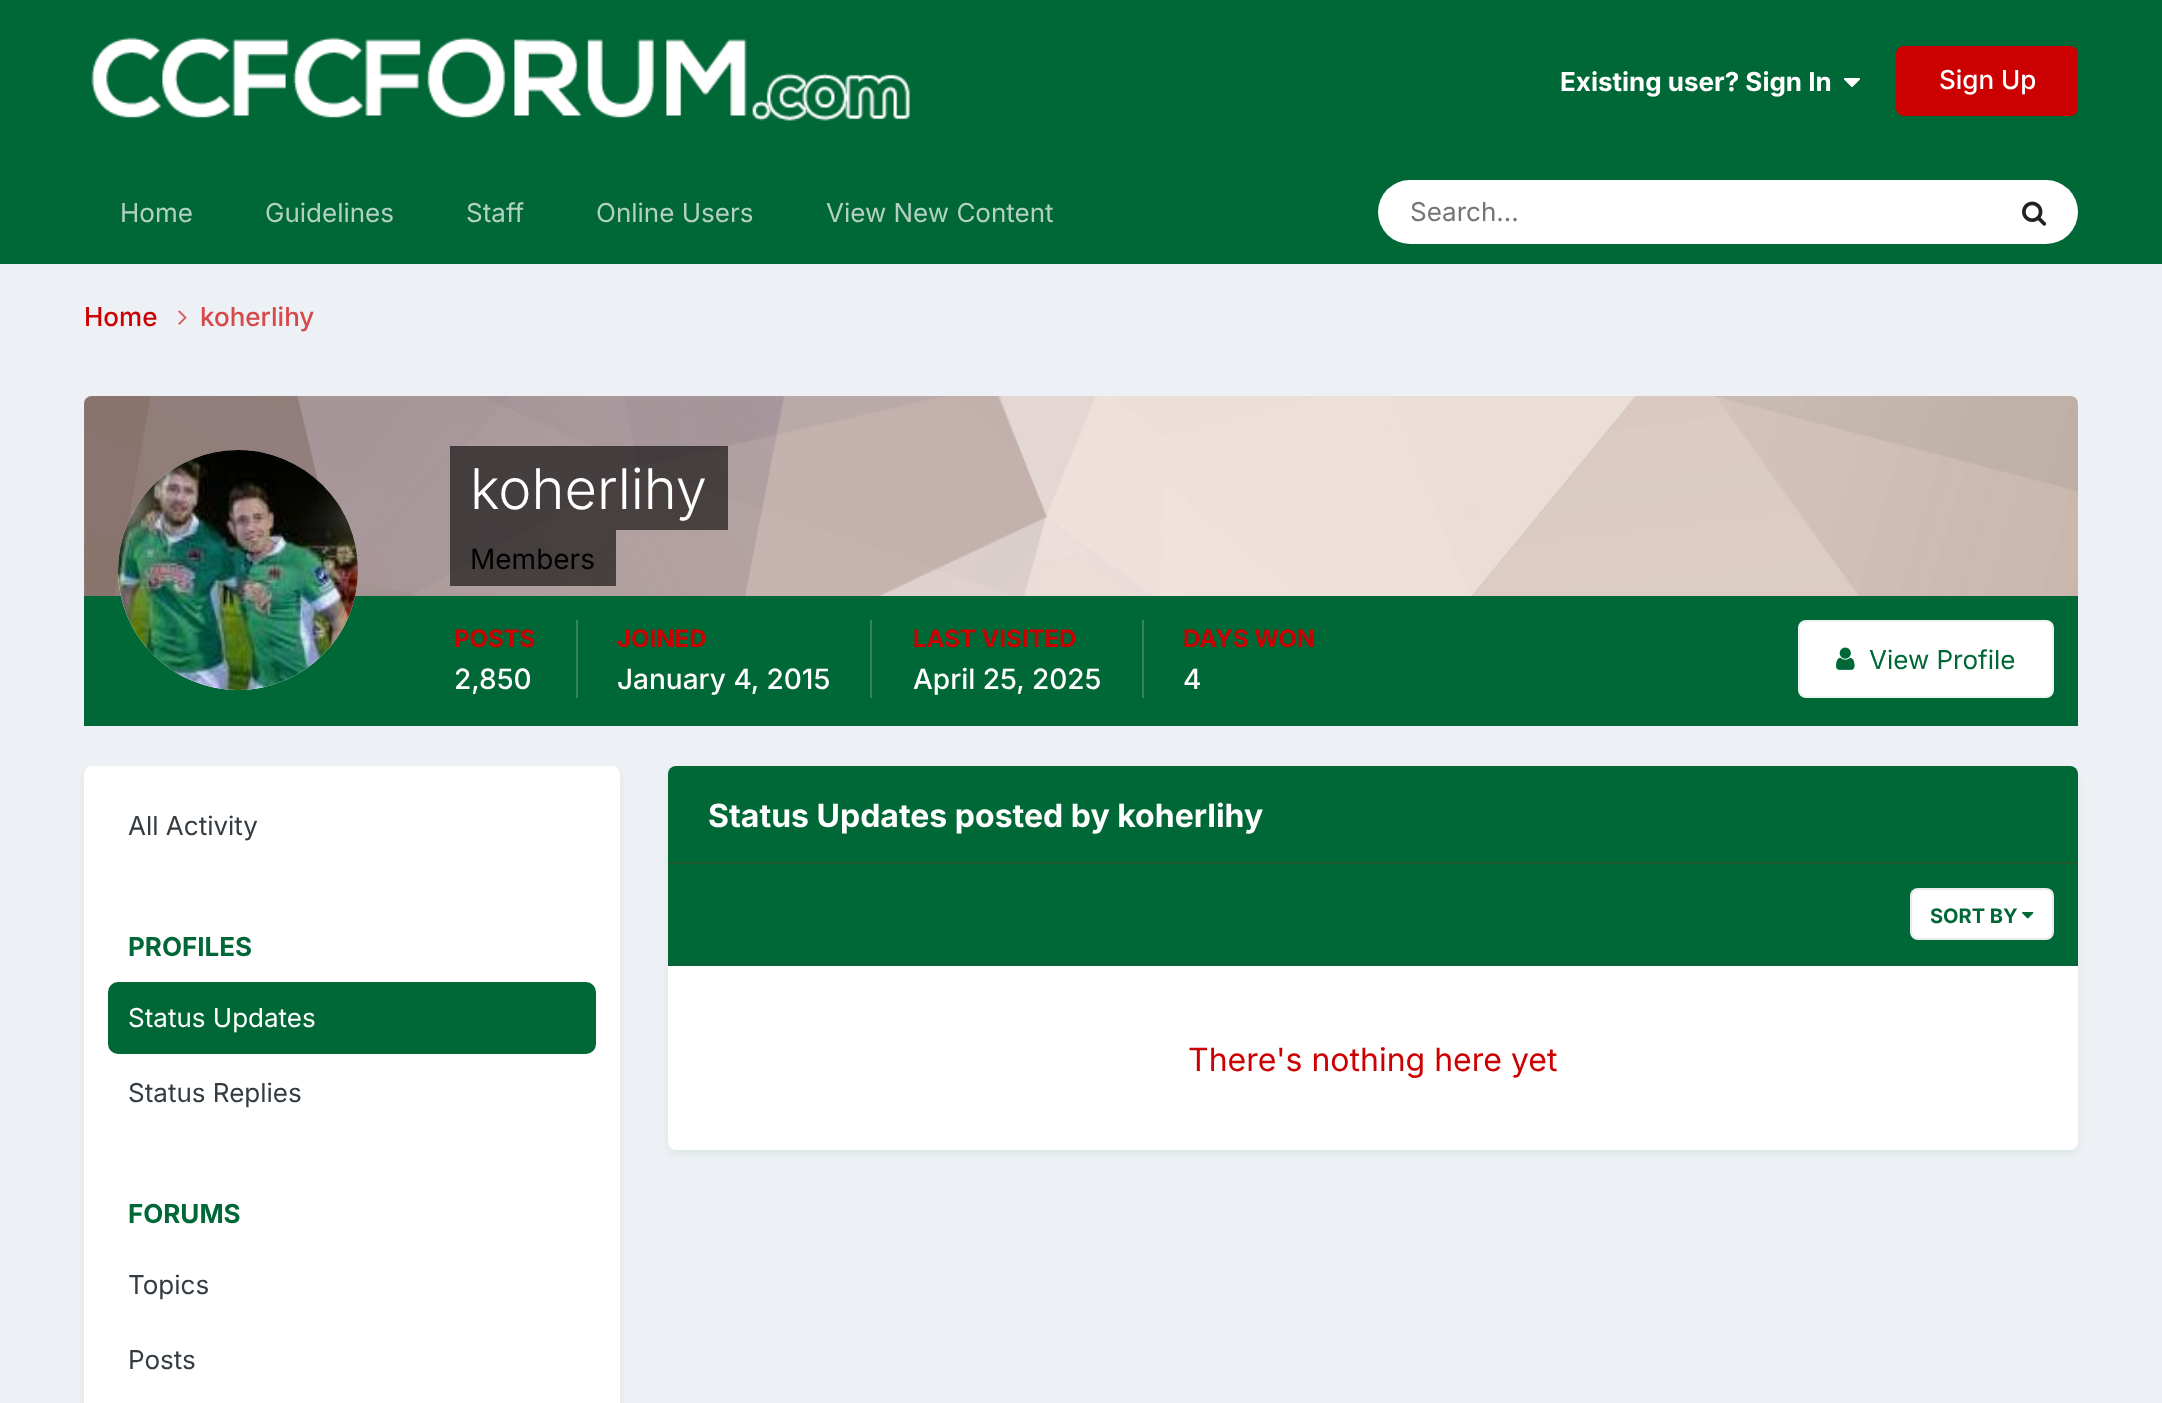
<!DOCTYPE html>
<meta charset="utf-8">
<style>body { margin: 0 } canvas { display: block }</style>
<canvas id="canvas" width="2162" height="1403"></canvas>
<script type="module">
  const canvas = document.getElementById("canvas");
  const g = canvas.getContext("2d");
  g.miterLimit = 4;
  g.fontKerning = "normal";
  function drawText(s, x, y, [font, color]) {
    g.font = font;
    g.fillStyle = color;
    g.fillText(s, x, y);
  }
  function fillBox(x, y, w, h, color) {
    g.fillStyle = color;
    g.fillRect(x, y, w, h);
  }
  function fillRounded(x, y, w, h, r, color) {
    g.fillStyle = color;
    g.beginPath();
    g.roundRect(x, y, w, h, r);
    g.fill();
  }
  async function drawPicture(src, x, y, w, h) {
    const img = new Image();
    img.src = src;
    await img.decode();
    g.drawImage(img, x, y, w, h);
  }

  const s1 = ["bold 26px Inter", "#FFFFFF"];
  const s2 = ["500 26px Inter", "#FFFFFF"];
  const s3 = ["26px Inter", "#B3D1C3"];
  const s4 = ["26px Inter", "#757575"];
  const s5 = ["500 26px Inter", "#CC0000"];
  const s6 = ["500 26px Inter", "#D64849"];
  const s7 = ["300 56px Inter", "#FFFFFF"];
  const s8 = ["28px Inter", "#000000"];
  const s9 = ["bold 24px Inter", "#CC0000"];
  const s10 = ["500 28px Inter", "#FFFFFF"];
  const s11 = ["26px Inter", "#006737"];
  const s12 = ["26px Inter", "#353C41"];
  const s13 = ["bold 26px Inter", "#006737"];
  const s14 = ["26px Inter", "#FFFFFF"];
  const s15 = ["bold 32px Inter", "#FFFFFF"];
  const s16 = ["bold 20px Inter", "#006737"];
  const s17 = ["32px Inter", "#CC0000"];

  fillBox(0, 0, 2162, 1403, "#EDF0F4");
  fillBox(0, 0, 2162, 264, "#006737");
  await drawPicture("pic1.png", 91, 37, 819, 84);
  drawText("Existing user? Sign In", 1560, 91, s1);
  await drawPicture("pic2.png", 1844, 78, 16, 9);
  fillRounded(1896, 46, 182, 70, 8, "#CC0000");
  drawText("Sign Up", 1939, 89, s2);
  drawText("Home", 120, 222, s3);
  drawText("Guidelines", 265, 222, s3);
  drawText("Staff", 466, 222, s3);
  drawText("Online Users", 596, 222, s3);
  drawText("View New Content", 826, 222, s3);
  fillRounded(1378, 180, 700, 64, 32, "#FFFFFF");
  drawText("Search...", 1410, 221, s4);
  await drawPicture("pic3.png", 2022, 201, 25, 25);
  drawText("Home", 84, 326, s5);
  await drawPicture("pic4.png", 178, 310, 9, 15);
  drawText("koherlihy", 200, 326, s6);
  g.fillStyle = "#FFB399";
  g.beginPath();
  g.roundRect(84, 396, 1994, 200, [8, 8, 0, 0]);
  g.fill();
  await drawPicture("pic5.png", 84, 396, 1994, 200);
  fillBox(84, 596, 1994, 130, "#006737");
  g.fillStyle = "#FFFFFF";
  g.beginPath();
  g.arc(238, 570, 120, 0, Math.PI * 2);
  g.fill();
  await drawPicture("pic6.png", 118, 450, 240, 240);
  fillBox(450, 446, 278, 84, "rgba(0, 0, 0, 0.6)");
  drawText("koherlihy", 470, 509, s7);
  fillBox(450, 530, 166, 56, "rgba(0, 0, 0, 0.6)");
  drawText("Members", 470, 569, s8);
  fillBox(576, 620, 2, 78, "#33855F");
  drawText("POSTS", 454, 647, s9);
  drawText("2,850", 454, 689, s10);
  fillBox(870, 620, 2, 78, "#33855F");
  drawText("JOINED", 617, 647, s9);
  drawText("January 4, 2015", 617, 689, s10);
  fillBox(1142, 620, 2, 78, "#33855F");
  drawText("LAST VISITED", 913, 647, s9);
  drawText("April 25, 2025", 913, 689, s10);
  drawText("DAYS WON", 1183, 647, s9);
  drawText("4", 1183, 689, s10);
  fillRounded(1798, 620, 256, 78, 8, "#FFFFFF");
  g.beginPath();
  g.roundRect(1799, 621, 254, 76, 7);
  g.strokeStyle = "rgba(0, 103, 55, 0.07)";
  g.lineWidth = 2;
  g.stroke();
  await drawPicture("pic7.png", 1836, 647, 19, 23);
  drawText("View Profile", 1869, 669, s11);
  g.fillStyle = "rgba(0, 103, 55, 0.1)";
  g.filter = "blur(4px)";
  g.beginPath();
  g.roundRect(86, 772, 532, 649, 6);
  g.fill();
  g.filter = "none";
  fillRounded(84, 766, 536, 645, 8, "#FFFFFF");
  drawText("All Activity", 128, 835, s12);
  drawText("PROFILES", 128, 956, s13);
  fillRounded(108, 982, 488, 72, 10, "#006737");
  drawText("Status Updates", 128, 1027, s14);
  drawText("Status Replies", 128, 1102, s12);
  drawText("FORUMS", 128, 1223, s13);
  drawText("Topics", 128, 1294, s12);
  drawText("Posts", 128, 1369, s12);
  g.fillStyle = "rgba(0, 103, 55, 0.1)";
  g.filter = "blur(4px)";
  g.beginPath();
  g.roundRect(670, 772, 1406, 380, 6);
  g.fill();
  g.filter = "none";
  fillRounded(668, 766, 1410, 384, 8, "#FFFFFF");
  g.fillStyle = "#006737";
  g.beginPath();
  g.roundRect(668, 766, 1410, 98, [8, 8, 0, 0]);
  g.fill();
  fillBox(668, 862, 1410, 2, "#1F582F");
  drawText("Status Updates posted by koherlihy", 708, 827, s15);
  fillBox(668, 864, 1410, 100, "#006737");
  fillBox(668, 964, 1410, 2, "#086139");
  fillRounded(1910, 888, 144, 52, 8, "#FFFFFF");
  await drawPicture("pic8.png", 2022, 912, 12, 7);
  g.beginPath();
  g.roundRect(1911, 889, 142, 50, 7);
  g.strokeStyle = "rgba(53, 60, 65, 0.1)";
  g.stroke();
  drawText("SORT BY", 1930, 923, s16);
  drawText("There's nothing here yet", 1188, 1071, s17);
</script>
